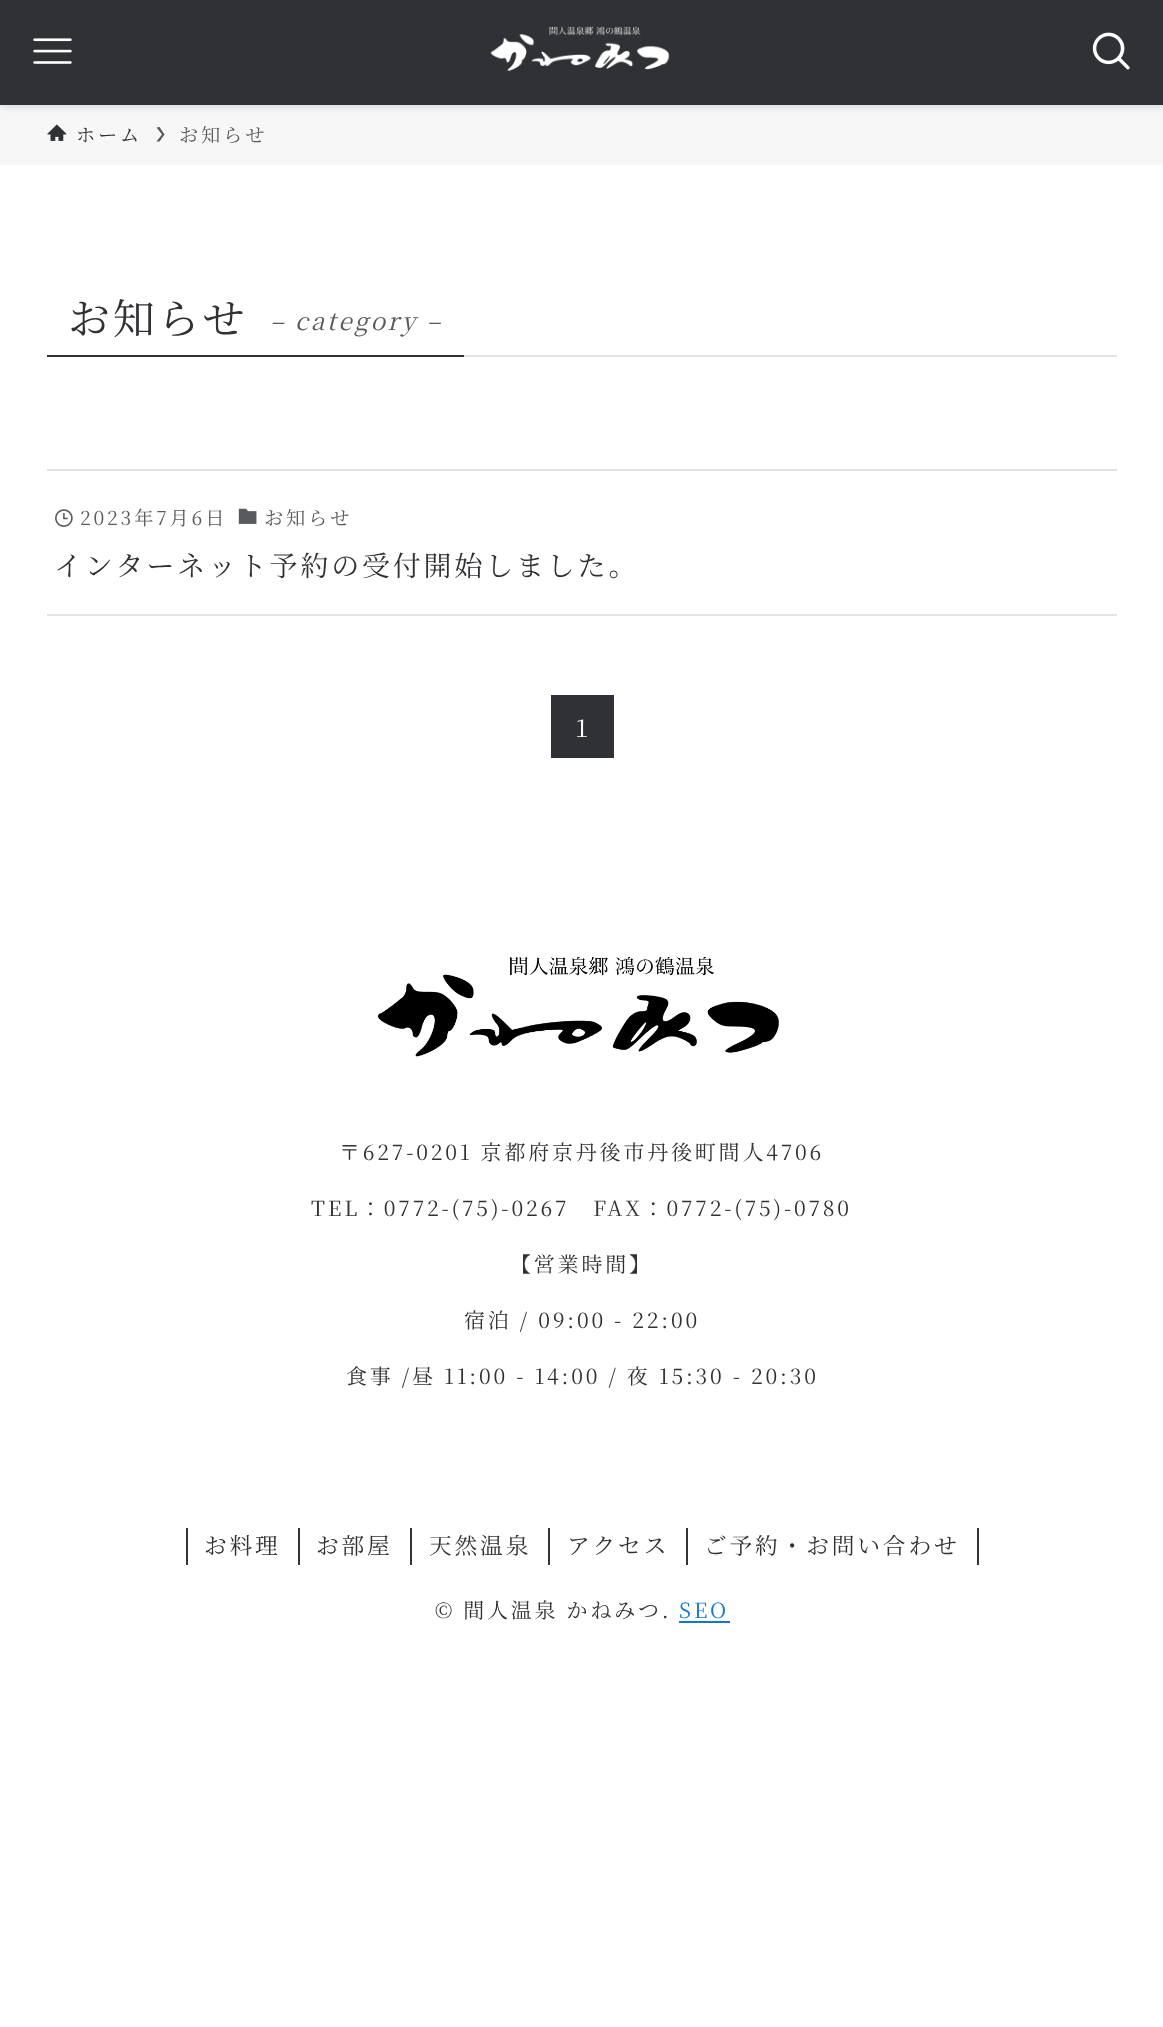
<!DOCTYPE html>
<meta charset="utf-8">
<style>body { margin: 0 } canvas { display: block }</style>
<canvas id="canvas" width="1163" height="2027"></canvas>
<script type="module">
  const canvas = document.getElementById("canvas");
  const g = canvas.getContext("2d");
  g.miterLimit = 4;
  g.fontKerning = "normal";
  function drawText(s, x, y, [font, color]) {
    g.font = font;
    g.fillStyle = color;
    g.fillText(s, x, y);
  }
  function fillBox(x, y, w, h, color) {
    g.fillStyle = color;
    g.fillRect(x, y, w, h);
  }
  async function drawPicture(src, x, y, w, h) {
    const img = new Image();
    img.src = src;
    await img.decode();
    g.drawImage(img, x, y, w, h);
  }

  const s1 = ["19.25px Noto Serif JP", "#303135"];
  const s2 = ["19.25px Noto Serif JP", "#58595C"];
  const s3 = ["42px Noto Serif JP", "#303135"];
  const s4 = ["italic 24.5px Noto Serif JP", "#58595C"];
  const s5 = ["28px Noto Serif JP", "#303135"];
  const s6 = ["24.5px Noto Serif JP", "#FFFFFF"];
  const s7 = ["21px Noto Serif JP", "#303135"];
  const s8 = ["22.75px Noto Serif JP", "#303135"];
  const s9 = ["21px Noto Serif JP", "#1176D4"];

  fillBox(0, 0, 1163, 2027, "#FFFFFF");
  fillBox(0, 105, 1163, 60, "#F7F7F7");
  g.fillStyle = "rgba(0, 0, 0, 0.12)";
  g.filter = "blur(3.5px)";
  g.beginPath();
  g.rect(0, 2, 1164, 105);
  g.fill();
  g.filter = "none";
  fillBox(0, 0, 1163, 105, "#303135");
  await drawPicture("pic1.png", 33, 38, 39, 26);
  await drawPicture("pic2.png", 490, 26, 180, 45);
  await drawPicture("pic3.png", 1092, 32, 38, 38);
  await drawPicture("pic4.png", 47, 124, 20, 17);
  g.letterSpacing = "2.8px";
  drawText("ホーム", 76, 142, s1);
  g.fillStyle = "#58595C";
  g.beginPath();
  g.moveTo(159.5, 127);
  g.lineTo(156.5, 127.5);
  g.lineTo(162, 134.5);
  g.lineTo(156.5, 141.5);
  g.lineTo(159.5, 141.5);
  g.lineTo(164.5, 134.5);
  g.closePath();
  g.fill();
  drawText("お知らせ", 179, 142, s2);
  fillBox(464, 355, 653, 2, "#E3E3E3");
  fillBox(47, 355, 417, 2, "#303135");
  drawText("お知らせ", 68, 334, s3);
  g.letterSpacing = "2.5px";
  drawText("– category –", 270, 330, s4);
  fillBox(47, 469, 1070, 2, "#E3E3E3");
  fillBox(47, 614, 1070, 2, "#E3E3E3");
  await drawPicture("pic5.png", 55, 509, 18, 18);
  g.letterSpacing = "2.8px";
  drawText("2023年7月6日", 80, 525, s2);
  await drawPicture("pic6.png", 238, 508, 19, 16);
  drawText("お知らせ", 264, 525, s2);
  drawText("インターネット予約の受付開始しました。", 54, 576, s5);
  fillBox(551, 695, 63, 63, "#303135");
  drawText("1", 575, 737, s6);
  await drawPicture("pic7.png", 378, 956, 401, 101);
  drawText("〒627-0201 京都府京丹後市丹後町間人4706", 339, 1160, s7);
  drawText("TEL：0772-(75)-0267　FAX：0772-(75)-0780", 311, 1216, s7);
  drawText("【営業時間】", 510, 1272, s7);
  drawText("宿泊 / 09:00 - 22:00", 464, 1328, s7);
  drawText("食事 /昼 11:00 - 14:00 / 夜 15:30 - 20:30", 346, 1384, s7);
  fillBox(298, 1528, 2, 37, "#333333");
  fillBox(186, 1528, 2, 37, "#333333");
  drawText("お料理", 204, 1554, s8);
  fillBox(410, 1528, 2, 37, "#333333");
  drawText("お部屋", 316, 1554, s8);
  fillBox(548, 1528, 2, 37, "#333333");
  drawText("天然温泉", 429, 1554, s8);
  fillBox(686, 1528, 2, 37, "#333333");
  drawText("アクセス", 567, 1554, s8);
  fillBox(977, 1528, 2, 37, "#333333");
  drawText("ご予約・お問い合わせ", 704, 1554, s8);
  drawText("© 間人温泉 かねみつ.", 435, 1618, s7);
  drawText("SEO", 679, 1618, s9);
  fillBox(679, 1621, 51, 2, "#1176D4");
</script>
